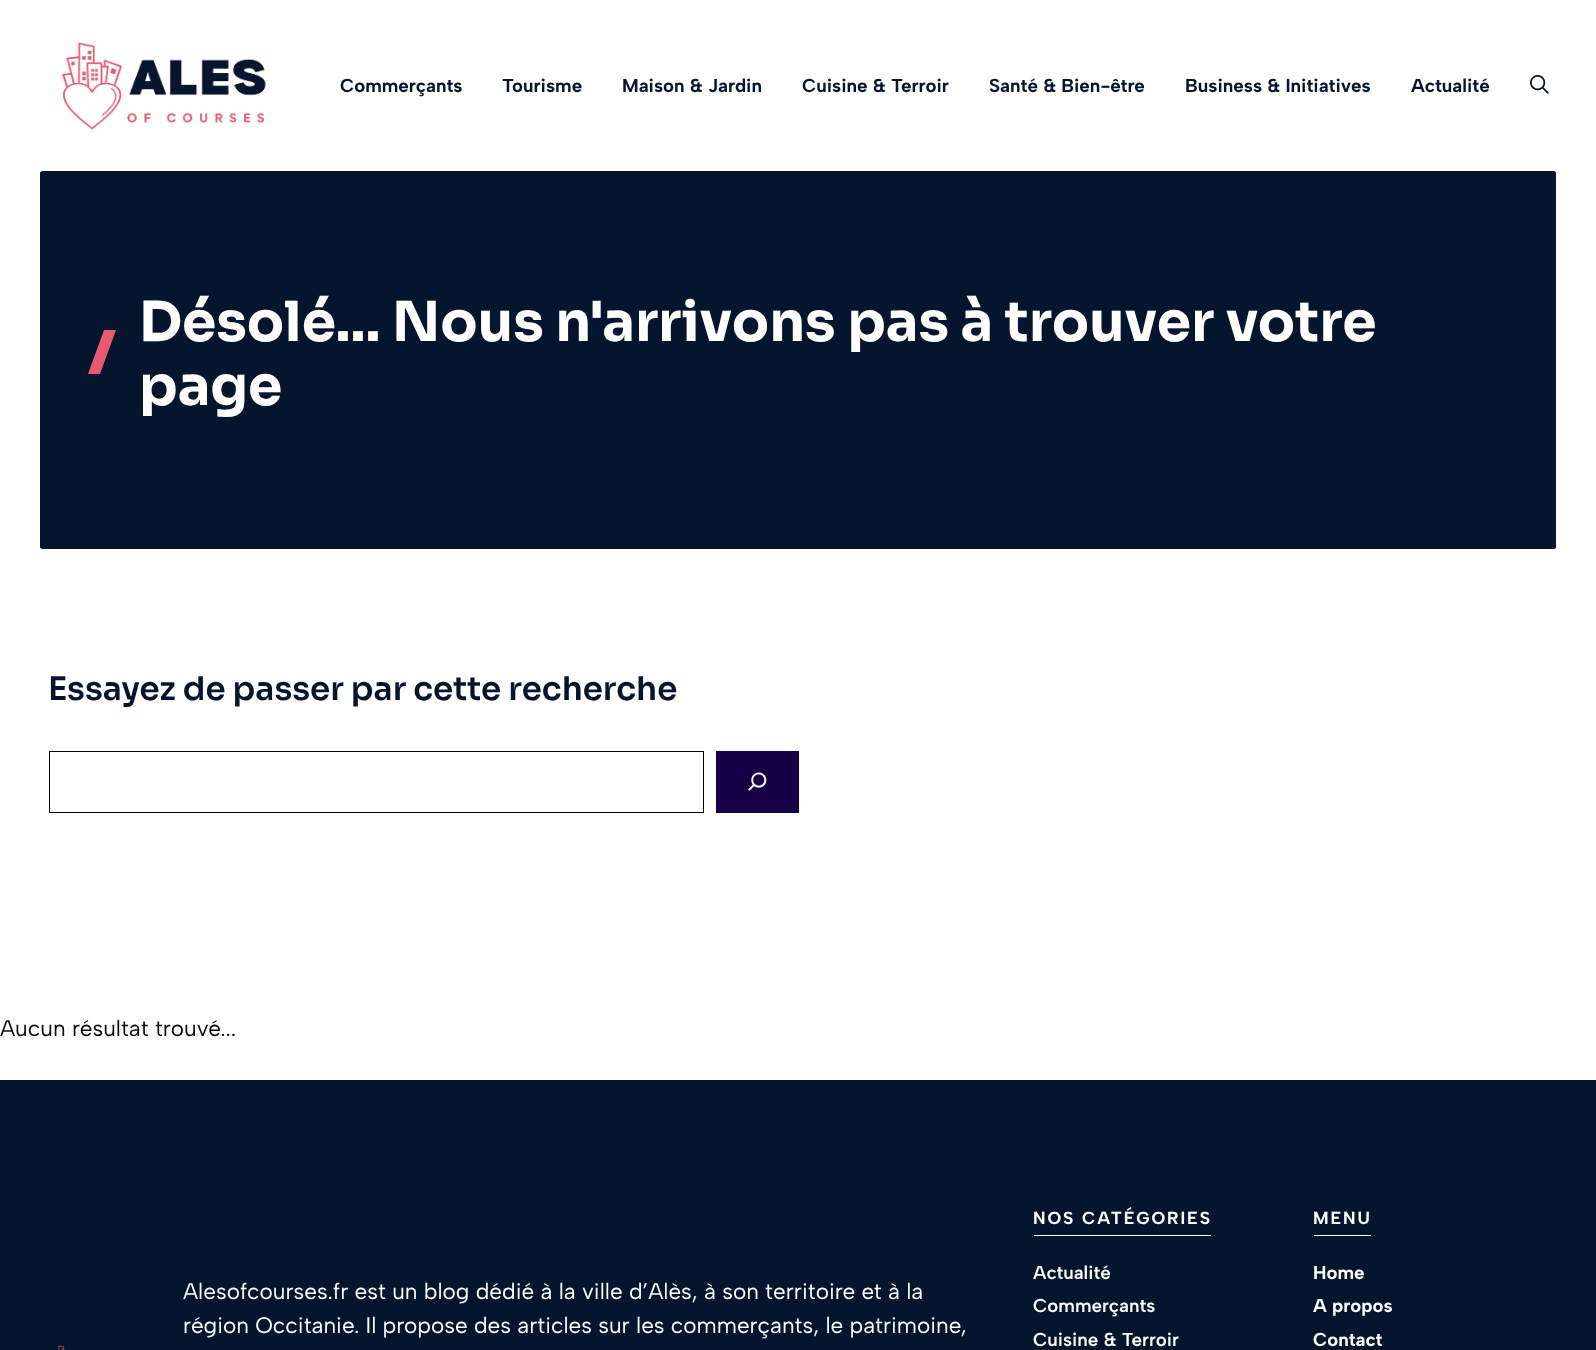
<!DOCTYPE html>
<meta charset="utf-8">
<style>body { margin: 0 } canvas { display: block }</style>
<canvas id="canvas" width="1596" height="1350"></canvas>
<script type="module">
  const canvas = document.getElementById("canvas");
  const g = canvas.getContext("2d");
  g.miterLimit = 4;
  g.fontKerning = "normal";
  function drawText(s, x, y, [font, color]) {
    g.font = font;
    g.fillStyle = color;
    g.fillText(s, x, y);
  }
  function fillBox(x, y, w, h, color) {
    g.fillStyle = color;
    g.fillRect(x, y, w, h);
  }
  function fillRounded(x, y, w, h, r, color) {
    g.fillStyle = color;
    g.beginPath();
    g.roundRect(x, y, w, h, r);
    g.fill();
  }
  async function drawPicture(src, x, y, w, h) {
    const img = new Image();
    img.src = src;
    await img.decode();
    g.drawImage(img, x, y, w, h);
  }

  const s1 = ["bold 18.75px Albert Sans", "#06152E"];
  const s2 = ["bold 55px Sora", "#FFFFFF"];
  const s3 = ["600 32.5px Sora", "#06152E"];
  const s4 = ["22.5px Albert Sans", "#08060D"];
  const s5 = ["22.5px Albert Sans", "#FFFFFF"];
  const s6 = ["bold 17.5px Albert Sans", "#FFFFFF"];
  const s7 = ["600 18.75px Albert Sans", "#FFFFFF"];
  const s8 = ["bold 18.75px Albert Sans", "#FFFFFF"];

  fillBox(0, 0, 1596, 1350, "#FFFFFF");
  await drawPicture("pic1.png", 60, 41, 206, 91);
  drawText("Commerçants", 340, 92, s1);
  drawText("Tourisme", 502, 92, s1);
  drawText("Maison & Jardin", 622, 92, s1);
  drawText("Cuisine & Terroir", 802, 92, s1);
  drawText("Santé & Bien-être", 989, 92, s1);
  drawText("Business & Initiatives", 1185, 92, s1);
  drawText("Actualité", 1411, 92, s1);
  await drawPicture("pic2.png", 1530, 75, 19, 19);
  fillRounded(40, 171, 1516, 378, 2.5, "#06152E");
  g.fillStyle = "#E85A6F";
  g.beginPath();
  g.moveTo(88, 374);
  g.lineTo(104, 330);
  g.lineTo(116, 330);
  g.lineTo(100, 374);
  g.closePath();
  g.fill();
  drawText("Désolé... Nous n'arrivons pas à trouver votre", 139, 341, s2);
  drawText("page", 139, 405, s2);
  drawText("Essayez de passer par cette recherche", 48, 700, s3);
  g.strokeStyle = "#000000";
  g.strokeRect(49.5, 751.5, 654, 61);
  fillBox(716, 751, 83, 62, "#170045");
  await drawPicture("pic3.png", 748, 772, 19, 19);
  drawText("Aucun résultat trouvé...", 0, 1036, s4);
  fillBox(0, 1080, 1596, 270, "#06152E");
  drawText("Alesofcourses.fr est un blog dédié à la ville d’Alès, à son territoire et à la", 183, 1299, s5);
  drawText("région Occitanie. Il propose des articles sur les commerçants, le patrimoine,", 183, 1333, s5);
  await drawPicture("pic4.png", 58, 1345, 7, 5);
  fillBox(1034, 1235, 177, 1, "#FFFFFF");
  g.letterSpacing = "1.9px";
  drawText("NOS CATÉGORIES", 1033, 1224, s6);
  g.letterSpacing = "0px";
  drawText("Actualité", 1033, 1279, s7);
  drawText("Commerçants", 1033, 1312, s7);
  drawText("Cuisine & Terroir", 1033, 1346, s7);
  fillBox(1314, 1235, 57, 1, "#FFFFFF");
  g.letterSpacing = "1.9px";
  drawText("MENU", 1313, 1224, s6);
  g.letterSpacing = "0px";
  drawText("Home", 1313, 1279, s8);
  drawText("A propos", 1313, 1312, s8);
  drawText("Contact", 1313, 1346, s8);
</script>
